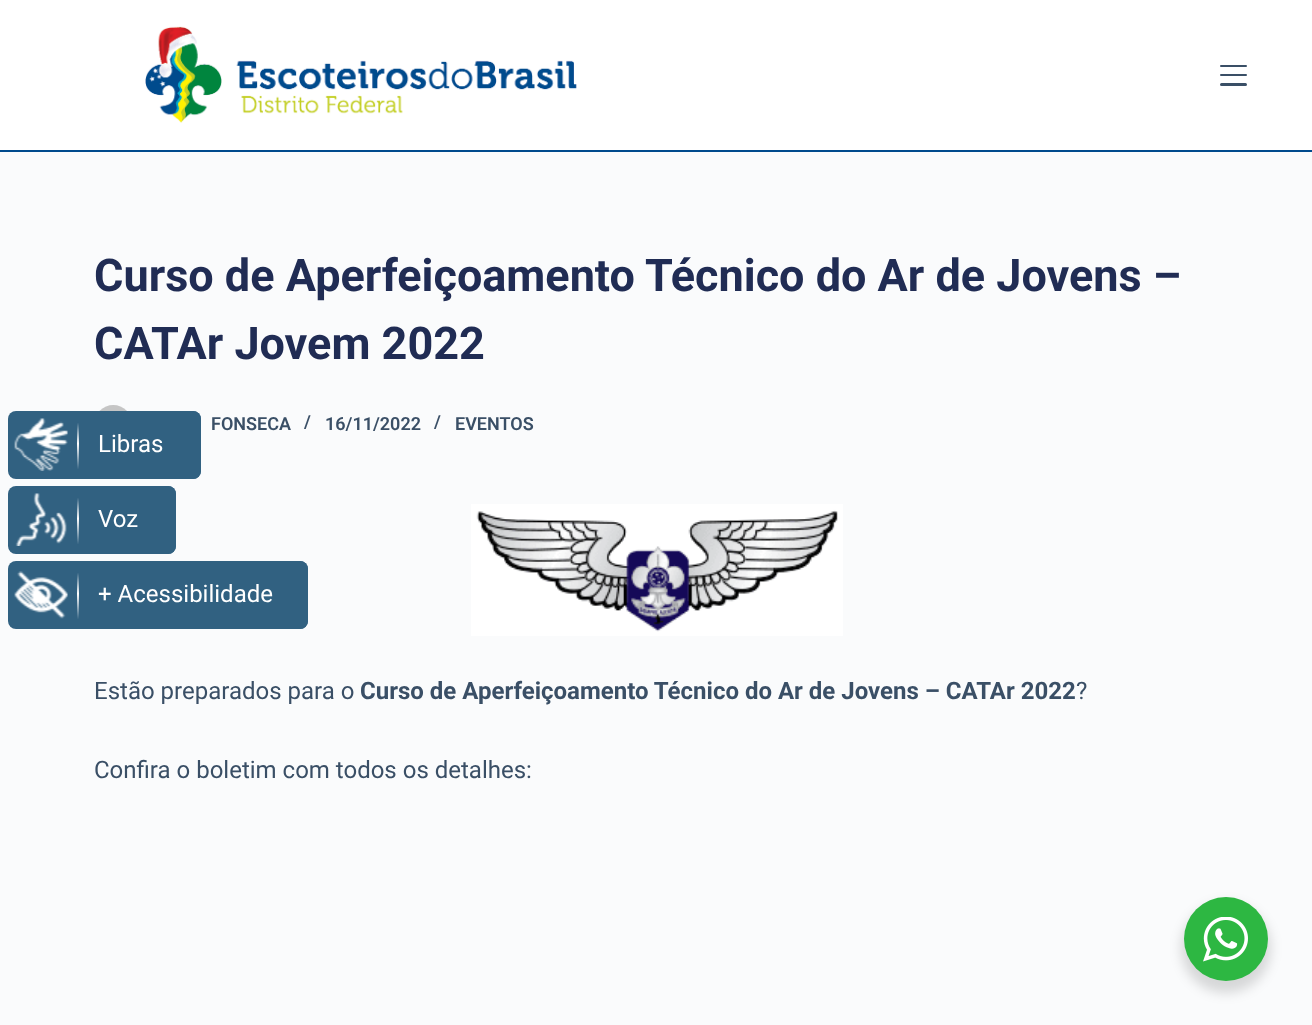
<!DOCTYPE html>
<meta charset="utf-8">
<style>body { margin: 0 } canvas { display: block }</style>
<canvas id="canvas" width="1312" height="1025"></canvas>
<script type="module">
  const canvas = document.getElementById("canvas");
  const g = canvas.getContext("2d");
  g.miterLimit = 4;
  g.fontKerning = "normal";
  function drawText(s, x, y, [font, color]) {
    g.font = font;
    g.fillStyle = color;
    g.fillText(s, x, y);
  }
  function fillBox(x, y, w, h, color) {
    g.fillStyle = color;
    g.fillRect(x, y, w, h);
  }
  function fillRounded(x, y, w, h, r, color) {
    g.fillStyle = color;
    g.beginPath();
    g.roundRect(x, y, w, h, r);
    g.fill();
  }
  async function drawPicture(src, x, y, w, h) {
    const img = new Image();
    img.src = src;
    await img.decode();
    g.drawImage(img, x, y, w, h);
  }
  let gradient;

  const s1 = ["bold 45px Roboto", "#202C54"];
  const s2 = ["600 18px Roboto", "#3A4F66"];
  const s3 = ["24px Roboto", "#3A4F66"];
  const s4 = ["bold 24px Roboto", "#3A4F66"];
  const s5 = ["24px Roboto", "#FFFFFF"];

  fillBox(0, 0, 1312, 1025, "#FAFBFC");
  fillBox(0, 0, 1312, 150, "#FFFFFF");
  fillBox(0, 150, 1312, 2, "#004A8D");
  await drawPicture("pic1.png", 145, 26, 432, 97);
  fillRounded(1220, 65, 27, 2, 1, "#3A4F66");
  fillRounded(1220, 74, 27, 2, 1, "#3A4F66");
  fillRounded(1220, 83, 27, 3, 1.5, "#3A4F66");
  drawText("Curso de Aperfeiçoamento Técnico do Ar de Jovens –", 94, 291, s1);
  drawText("CATAr Jovem 2022", 94, 359, s1);
  await drawPicture("pic2.png", 99, 405, 28, 6);
  drawText("FONSECA", 211, 430, s2);
  drawText("/", 304, 428, s2);
  drawText("16/11/2022", 325, 430, s2);
  drawText("/", 434, 428, s2);
  drawText("EVENTOS", 455, 430, s2);
  await drawPicture("pic3.png", 471, 504, 372, 132);
  drawText("Estão preparados para o", 94, 699, s3);
  drawText("Curso de Aperfeiçoamento Técnico do Ar de Jovens – CATAr 2022", 360, 699, s4);
  drawText("?", 1076, 699, s3);
  drawText("Confira o boletim com todos os detalhes:", 94, 778, s3);
  fillRounded(8, 411, 193, 68, 8, "#316181");
  await drawPicture("pic4.png", 14, 418, 54, 53);
  g.beginPath();
  g.roundRect(68, 411, 133, 68, [0, 8, 8, 0]);
  g.fill();
  gradient = g.createLinearGradient(77, 479, 77, 411);
  gradient.addColorStop(0.14, "#316181");
  gradient.addColorStop(0.52, "#FFFFFF");
  gradient.addColorStop(0.83, "#316181");
  g.fillStyle = gradient;
  g.fillRect(77, 423, 2, 46);
  drawText("Libras", 98, 452, s5);
  fillRounded(8, 486, 168, 68, 8, "#316181");
  await drawPicture("pic5.png", 15, 493, 52, 53);
  g.beginPath();
  g.roundRect(68, 486, 108, 68, [0, 8, 8, 0]);
  g.fill();
  gradient = g.createLinearGradient(77, 554, 77, 486);
  gradient.addColorStop(0.14, "#316181");
  gradient.addColorStop(0.52, "#FFFFFF");
  gradient.addColorStop(0.83, "#316181");
  g.fillStyle = gradient;
  g.fillRect(77, 498, 2, 46);
  drawText("Voz", 98, 527, s5);
  fillRounded(8, 561, 300, 68, 8, "#316181");
  await drawPicture("pic6.png", 14, 571, 54, 48);
  g.save();
  g.beginPath();
  g.roundRect(8, 561, 300, 68, 8);
  g.clip();
  g.beginPath();
  g.roundRect(68, 561, 243, 68, [0, 8, 8, 0]);
  g.fill();
  g.restore();
  gradient = g.createLinearGradient(77, 629, 77, 561);
  gradient.addColorStop(0.14, "#316181");
  gradient.addColorStop(0.52, "#FFFFFF");
  gradient.addColorStop(0.83, "#316181");
  g.fillStyle = gradient;
  g.fillRect(77, 573, 2, 46);
  drawText("+ Acessibilidade", 98, 602, s5);
  g.fillStyle = "rgba(0, 0, 0, 0.14)";
  g.filter = "blur(6px)";
  g.beginPath();
  g.roundRect(1181, 903, 90, 90, 45);
  g.fill();
  g.filter = "none";
  g.fillStyle = "#2DB742";
  g.beginPath();
  g.arc(1226, 939, 42, 0, Math.PI * 2);
  g.fill();
  await drawPicture("pic7.png", 1203, 917, 45, 45);
</script>
